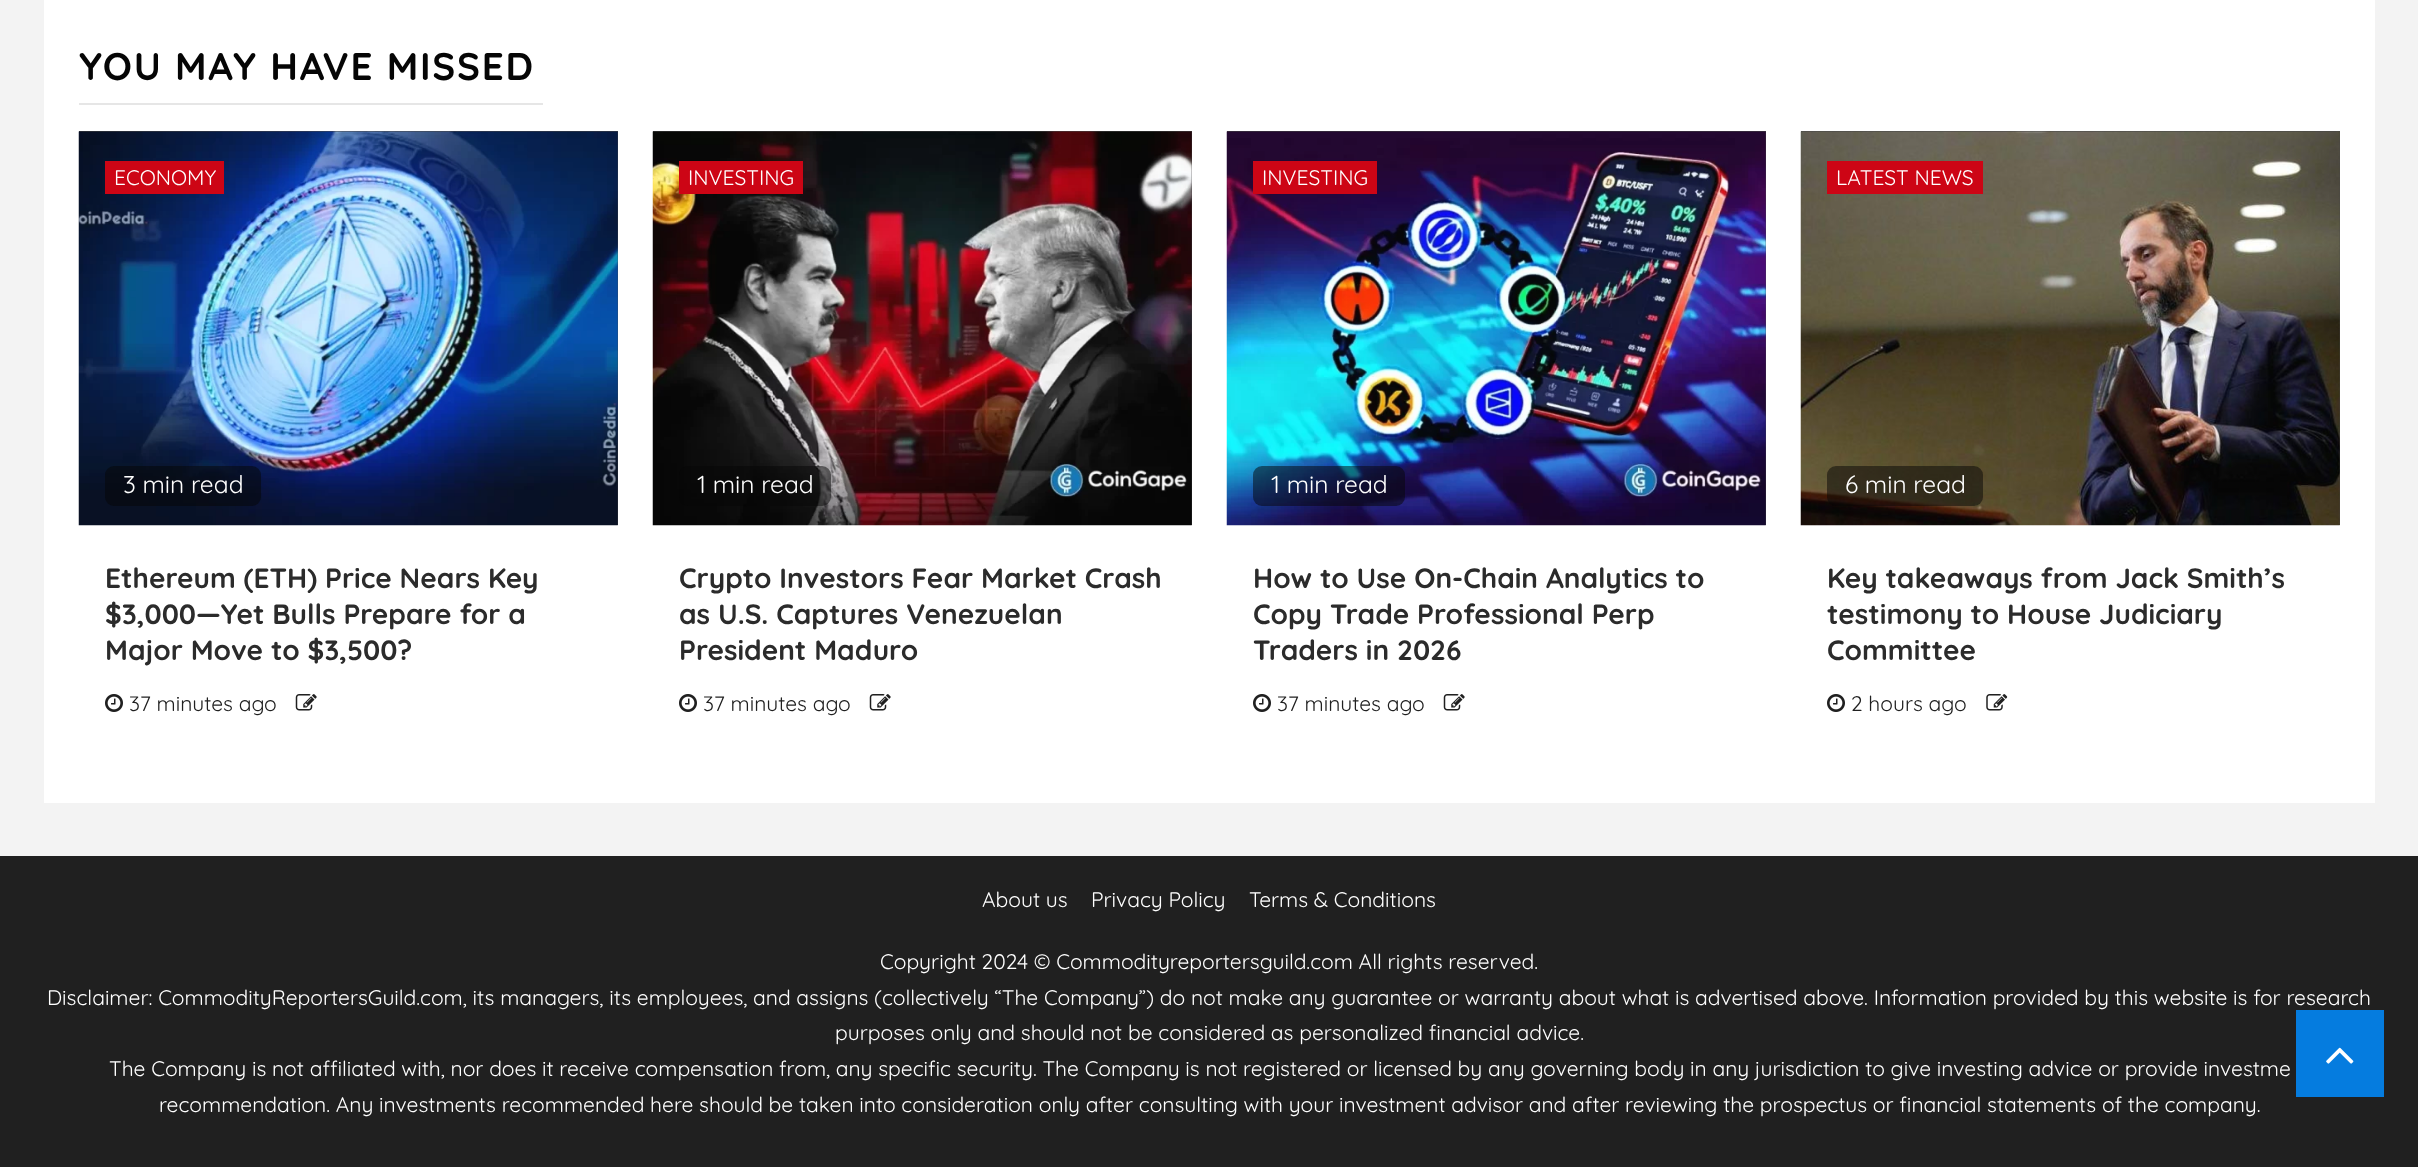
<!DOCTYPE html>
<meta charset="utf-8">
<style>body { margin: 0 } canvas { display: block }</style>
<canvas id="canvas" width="2418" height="1167"></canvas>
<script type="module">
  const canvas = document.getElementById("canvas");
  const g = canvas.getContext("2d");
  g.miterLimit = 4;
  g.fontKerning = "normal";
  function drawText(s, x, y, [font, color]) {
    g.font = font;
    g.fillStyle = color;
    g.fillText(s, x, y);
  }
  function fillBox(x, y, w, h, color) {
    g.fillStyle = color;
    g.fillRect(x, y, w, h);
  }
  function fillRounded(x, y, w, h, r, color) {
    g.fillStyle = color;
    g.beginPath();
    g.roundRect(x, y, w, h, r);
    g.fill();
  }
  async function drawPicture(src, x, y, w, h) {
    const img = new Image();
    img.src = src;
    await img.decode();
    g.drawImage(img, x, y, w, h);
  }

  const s1 = ["bold 38.5px Quicksand", "#050505"];
  const s2 = ["21px Quicksand", "#FFFFFF"];
  const s3 = ["24.5px Quicksand", "#FFFFFF"];
  const s4 = ["bold 28px Quicksand", "#2B2B2B"];
  const s5 = ["21px Quicksand", "#202020"];

  fillBox(0, 0, 2418, 1167, "#F3F3F3");
  fillBox(44, 0, 2331, 803, "#FFFFFF");
  g.letterSpacing = "1.75px";
  drawText("YOU MAY HAVE MISSED", 79, 80, s1);
  fillBox(79, 103, 464, 2, "#E6E6E6");
  fillBox(79, 131, 539, 394, "#444444");
  await drawPicture("pic1.png", 78, 131, 540, 395);
  fillBox(105, 161, 119, 33, "#CD0515");
  g.letterSpacing = "0px";
  drawText("ECONOMY", 114, 185, s2);
  fillRounded(105, 466, 156, 40, 9, "rgba(5, 5, 5, 0.5)");
  drawText("3 min read", 123, 493, s3);
  drawText("Ethereum (ETH) Price Nears Key", 105, 588, s4);
  drawText("$3,000—Yet Bulls Prepare for a", 105, 624, s4);
  drawText("Major Move to $3,500?", 105, 660, s4);
  await drawPicture("pic2.png", 105, 694, 18, 18);
  drawText("37 minutes ago", 129, 711, s5);
  await drawPicture("pic3.png", 295, 694, 22, 17);
  fillBox(653, 131, 539, 394, "#444444");
  await drawPicture("pic4.png", 652, 131, 540, 395);
  fillBox(679, 161, 124, 33, "#CD0515");
  drawText("INVESTING", 688, 185, s2);
  fillRounded(679, 466, 152, 40, 9, "rgba(5, 5, 5, 0.5)");
  drawText("1 min read", 697, 493, s3);
  drawText("Crypto Investors Fear Market Crash", 679, 588, s4);
  drawText("as U.S. Captures Venezuelan", 679, 624, s4);
  drawText("President Maduro", 679, 660, s4);
  await drawPicture("pic2.png", 679, 694, 18, 18);
  drawText("37 minutes ago", 703, 711, s5);
  await drawPicture("pic3.png", 869, 694, 22, 17);
  fillBox(1227, 131, 539, 394, "#444444");
  await drawPicture("pic5.png", 1226, 131, 540, 395);
  fillBox(1253, 161, 124, 33, "#CD0515");
  drawText("INVESTING", 1262, 185, s2);
  fillRounded(1253, 466, 152, 40, 9, "rgba(5, 5, 5, 0.5)");
  drawText("1 min read", 1271, 493, s3);
  drawText("How to Use On-Chain Analytics to", 1253, 588, s4);
  drawText("Copy Trade Professional Perp", 1253, 624, s4);
  drawText("Traders in 2026", 1253, 660, s4);
  await drawPicture("pic2.png", 1253, 694, 18, 18);
  drawText("37 minutes ago", 1277, 711, s5);
  await drawPicture("pic3.png", 1443, 694, 22, 17);
  fillBox(1801, 131, 539, 394, "#444444");
  await drawPicture("pic6.png", 1800, 131, 540, 395);
  fillBox(1827, 161, 156, 33, "#CD0515");
  drawText("LATEST NEWS", 1836, 185, s2);
  fillRounded(1827, 466, 156, 40, 9, "rgba(5, 5, 5, 0.5)");
  drawText("6 min read", 1845, 493, s3);
  drawText("Key takeaways from Jack Smith’s", 1827, 588, s4);
  drawText("testimony to House Judiciary", 1827, 624, s4);
  drawText("Committee", 1827, 660, s4);
  await drawPicture("pic7.png", 1827, 694, 18, 18);
  drawText("2 hours ago", 1851, 711, s5);
  await drawPicture("pic8.png", 1986, 694, 22, 17);
  fillBox(0, 856, 2418, 311, "#202020");
  drawText("About us", 982, 907, s2);
  drawText("Privacy Policy", 1091, 907, s2);
  drawText("Terms & Conditions", 1249, 907, s2);
  drawText("Copyright 2024 © Commodityreportersguild.com All rights reserved.", 880, 969, s2);
  drawText("Disclaimer: CommodityReportersGuild.com, its managers, its employees, and assigns (collectively “The Company”) do not make any guarantee or warranty about what is advertised above. Information provided by this website is for research", 47, 1005, s2);
  drawText("purposes only and should not be considered as personalized financial advice.", 835, 1040, s2);
  drawText("The Company is not affiliated with, nor does it receive compensation from, any specific security. The Company is not registered or licensed by any governing body in any jurisdiction to give investing advice or provide investme", 109, 1076, s2);
  drawText("recommendation. Any investments recommended here should be taken into consideration only after consulting with your investment advisor and after reviewing the prospectus or financial statements of the company.", 159, 1112, s2);
  fillBox(2296, 1010, 88, 87, "#057CDF");
  await drawPicture("pic9.png", 2326, 1047, 28, 17);
</script>
